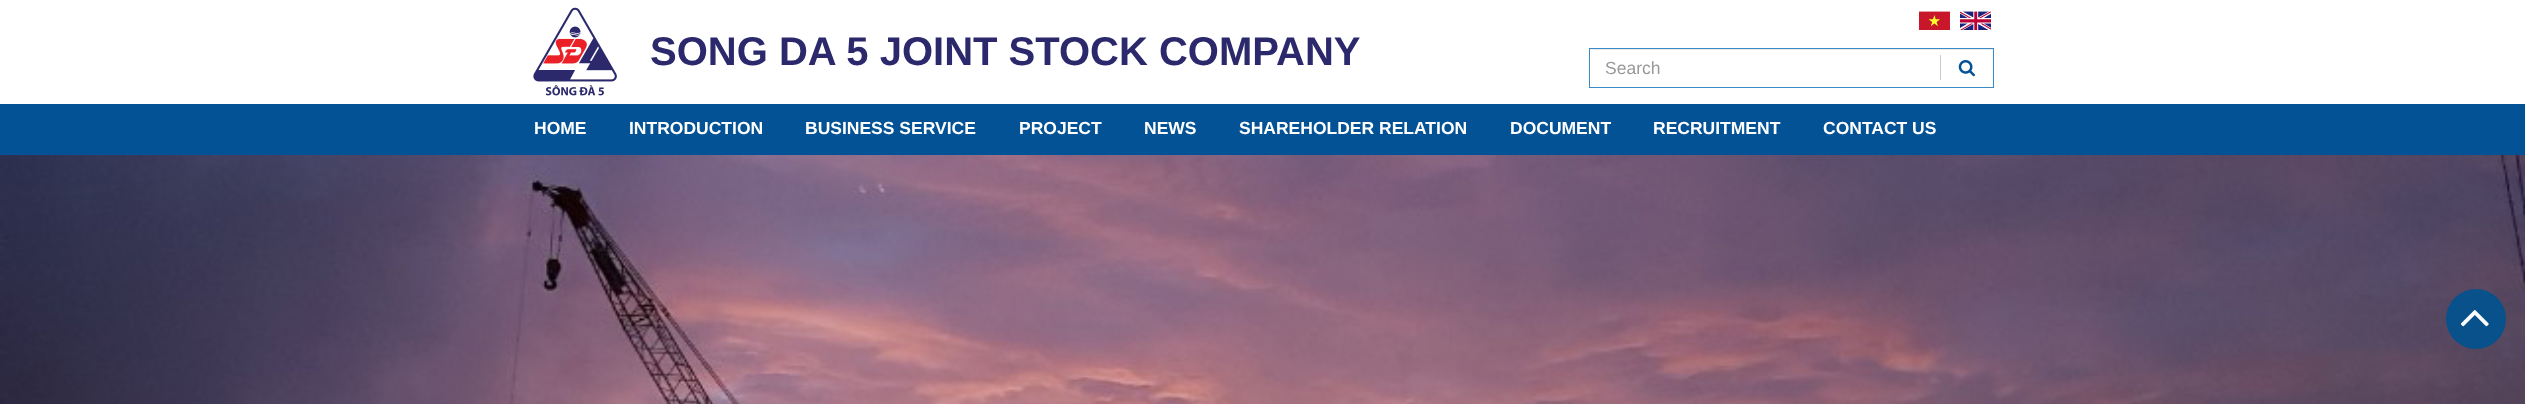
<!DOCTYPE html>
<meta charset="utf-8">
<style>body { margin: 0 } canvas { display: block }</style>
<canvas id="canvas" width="2525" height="404"></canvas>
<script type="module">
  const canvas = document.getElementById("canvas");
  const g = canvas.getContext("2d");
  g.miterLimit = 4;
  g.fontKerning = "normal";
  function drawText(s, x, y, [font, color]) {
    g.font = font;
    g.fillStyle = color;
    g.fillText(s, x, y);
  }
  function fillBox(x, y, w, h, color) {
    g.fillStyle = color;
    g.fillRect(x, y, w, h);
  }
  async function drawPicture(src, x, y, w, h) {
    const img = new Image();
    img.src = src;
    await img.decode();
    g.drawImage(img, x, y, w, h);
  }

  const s1 = ["bold 40px Liberation Sans", "#2C286C"];
  const s2 = ["17.5px Liberation Sans", "#999999"];
  const s3 = ["bold 17.5px Liberation Sans", "#FFFFFF"];

  fillBox(0, 0, 2525, 404, "#FFFFFF");
  await drawPicture("pic1.png", 533, 7, 84, 89);
  drawText("SONG DA 5 JOINT STOCK COMPANY", 650, 65, s1);
  await drawPicture("pic2.png", 1919, 11, 31, 19);
  await drawPicture("pic3.png", 1960, 11, 31, 19);
  fillBox(1590, 49, 403, 1, "#ECECEC");
  g.strokeStyle = "#3B89C5";
  g.strokeRect(1589.5, 48.5, 404, 39);
  drawText("Search", 1605, 74, s2);
  fillBox(1940, 55, 1, 25, "#CCCCCC");
  await drawPicture("pic4.png", 1958, 60, 17, 17);
  fillBox(0, 104, 2525, 51, "#025295");
  drawText("HOME", 534, 134, s3);
  drawText("INTRODUCTION", 629, 134, s3);
  drawText("BUSINESS SERVICE", 805, 134, s3);
  drawText("PROJECT", 1019, 134, s3);
  drawText("NEWS", 1144, 134, s3);
  drawText("SHAREHOLDER RELATION", 1239, 134, s3);
  drawText("DOCUMENT", 1510, 134, s3);
  drawText("RECRUITMENT", 1653, 134, s3);
  drawText("CONTACT US", 1823, 134, s3);
  await drawPicture("pic5.png", 0, 155, 2525, 249);
  g.fillStyle = "#08518B";
  g.beginPath();
  g.arc(2476, 319, 30, 0, Math.PI * 2);
  g.fill();
  await drawPicture("pic6.png", 2461, 310, 28, 17);
</script>
